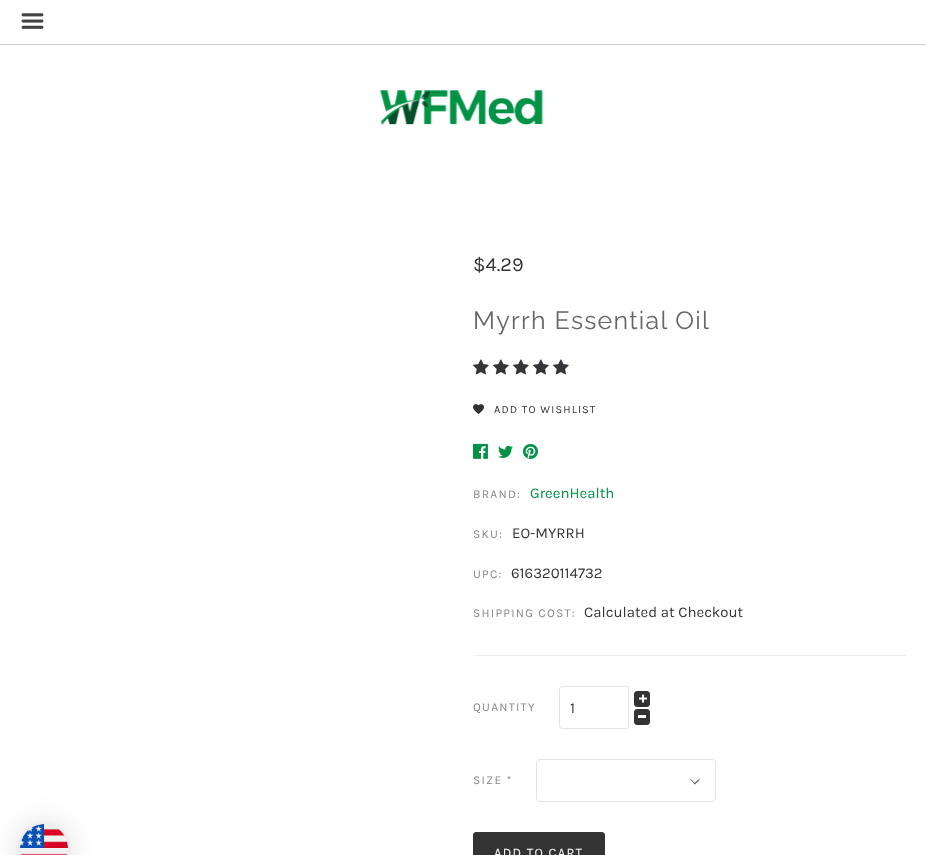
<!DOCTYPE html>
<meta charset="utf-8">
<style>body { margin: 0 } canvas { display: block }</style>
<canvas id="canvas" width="926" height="855"></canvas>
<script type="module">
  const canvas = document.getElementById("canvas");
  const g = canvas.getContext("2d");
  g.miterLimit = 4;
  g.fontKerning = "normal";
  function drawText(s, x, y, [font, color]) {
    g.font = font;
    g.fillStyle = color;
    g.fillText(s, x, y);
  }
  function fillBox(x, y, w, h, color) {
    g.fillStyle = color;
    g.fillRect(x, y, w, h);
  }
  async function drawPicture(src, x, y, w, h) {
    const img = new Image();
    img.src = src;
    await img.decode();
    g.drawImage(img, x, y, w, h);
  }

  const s1 = ["20px Karla", "#333538"];
  const s2 = ["25px Raleway", "#666666"];
  const s3 = ["11px Karla", "#333538"];
  const s4 = ["12px Karla", "#888888"];
  const s5 = ["15px Karla", "#009245"];
  const s6 = ["15px Karla", "#333538"];
  const s7 = ["13px Karla", "#FFFFFF"];

  fillBox(0, 0, 926, 855, "#FFFFFF");
  fillBox(0, 44, 926, 1, "#D1D1D1");
  await drawPicture("pic1.png", 21, 13, 23, 16);
  await drawPicture("pic2.png", 380, 90, 164, 35);
  g.fillStyle = "rgba(0, 0, 0, 0.16)";
  g.filter = "blur(16px)";
  g.beginPath();
  g.roundRect(20, 826, 48, 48, 24);
  g.fill();
  g.filter = "none";
  g.fillStyle = "rgba(0, 0, 0, 0.06)";
  g.filter = "blur(3px)";
  g.beginPath();
  g.roundRect(20, 825, 48, 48, 24);
  g.fill();
  g.filter = "none";
  await drawPicture("pic3.png", 20, 824, 48, 31);
  fillBox(473, 655, 433, 1, "#EEEEEE");
  drawText("$4.29", 473, 271, s1);
  g.letterSpacing = "1.25px";
  drawText("Myrrh Essential Oil", 473, 329, s2);
  await drawPicture("pic4.png", 473, 359, 16, 16);
  await drawPicture("pic4.png", 493, 359, 16, 16);
  await drawPicture("pic4.png", 513, 359, 16, 16);
  await drawPicture("pic4.png", 533, 359, 16, 16);
  await drawPicture("pic4.png", 553, 359, 16, 16);
  await drawPicture("pic5.png", 473, 404, 11, 11);
  g.letterSpacing = "1.1px";
  drawText("ADD TO WISHLIST", 494, 413, s3);
  await drawPicture("pic6.png", 473, 443, 15, 16);
  await drawPicture("pic7.png", 498, 445, 15, 13);
  await drawPicture("pic8.png", 523, 443, 15, 16);
  g.letterSpacing = "1.25px";
  drawText("BRAND:", 473, 498, s4);
  g.letterSpacing = "0px";
  drawText("GreenHealth", 530, 498, s5);
  g.letterSpacing = "1.25px";
  drawText("SKU:", 473, 538, s4);
  g.letterSpacing = "0px";
  drawText("EO-MYRRH", 512, 538, s6);
  g.letterSpacing = "1.25px";
  drawText("UPC:", 473, 578, s4);
  g.letterSpacing = "0px";
  drawText("616320114732", 511, 578, s6);
  g.letterSpacing = "1.25px";
  drawText("SHIPPING COST:", 473, 617, s4);
  g.letterSpacing = "0px";
  drawText("Calculated at Checkout", 584, 617, s6);
  g.letterSpacing = "1.25px";
  drawText("QUANTITY", 473, 711, s4);
  g.beginPath();
  g.roundRect(559.5, 686.5, 69, 42, 2.5);
  g.strokeStyle = "#E4E4E4";
  g.stroke();
  g.letterSpacing = "0px";
  drawText("1", 570, 713, s6);
  g.fillStyle = "#333333";
  g.beginPath();
  g.roundRect(634.5, 691.5, 15, 15, 2.5);
  g.fill();
  g.strokeStyle = "#333333";
  g.stroke();
  await drawPicture("pic9.png", 639, 694, 8, 9);
  g.beginPath();
  g.roundRect(634.5, 709.5, 15, 15, 2.5);
  g.fill();
  g.stroke();
  fillBox(638, 715, 8, 3, "#FFFFFF");
  g.letterSpacing = "1.25px";
  drawText("SIZE *", 473, 784, s4);
  g.beginPath();
  g.roundRect(536.5, 759.5, 179, 42, 3.5);
  g.strokeStyle = "#E4E4E4";
  g.stroke();
  g.fillStyle = "#666666";
  g.beginPath();
  g.moveTo(700, 779.5);
  g.lineTo(695, 784.5);
  g.lineTo(694, 783.5);
  g.lineTo(699, 779);
  g.closePath();
  g.fill();
  g.beginPath();
  g.moveTo(695.5, 783.5);
  g.lineTo(695, 784.5);
  g.lineTo(690, 779.5);
  g.lineTo(690.5, 779);
  g.closePath();
  g.fill();
  g.fillStyle = "#333333";
  g.beginPath();
  g.roundRect(473.5, 832.5, 131, 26, 2.5);
  g.fill();
  g.strokeStyle = "#333333";
  g.stroke();
  drawText("ADD TO CART", 494, 857, s7);
</script>
